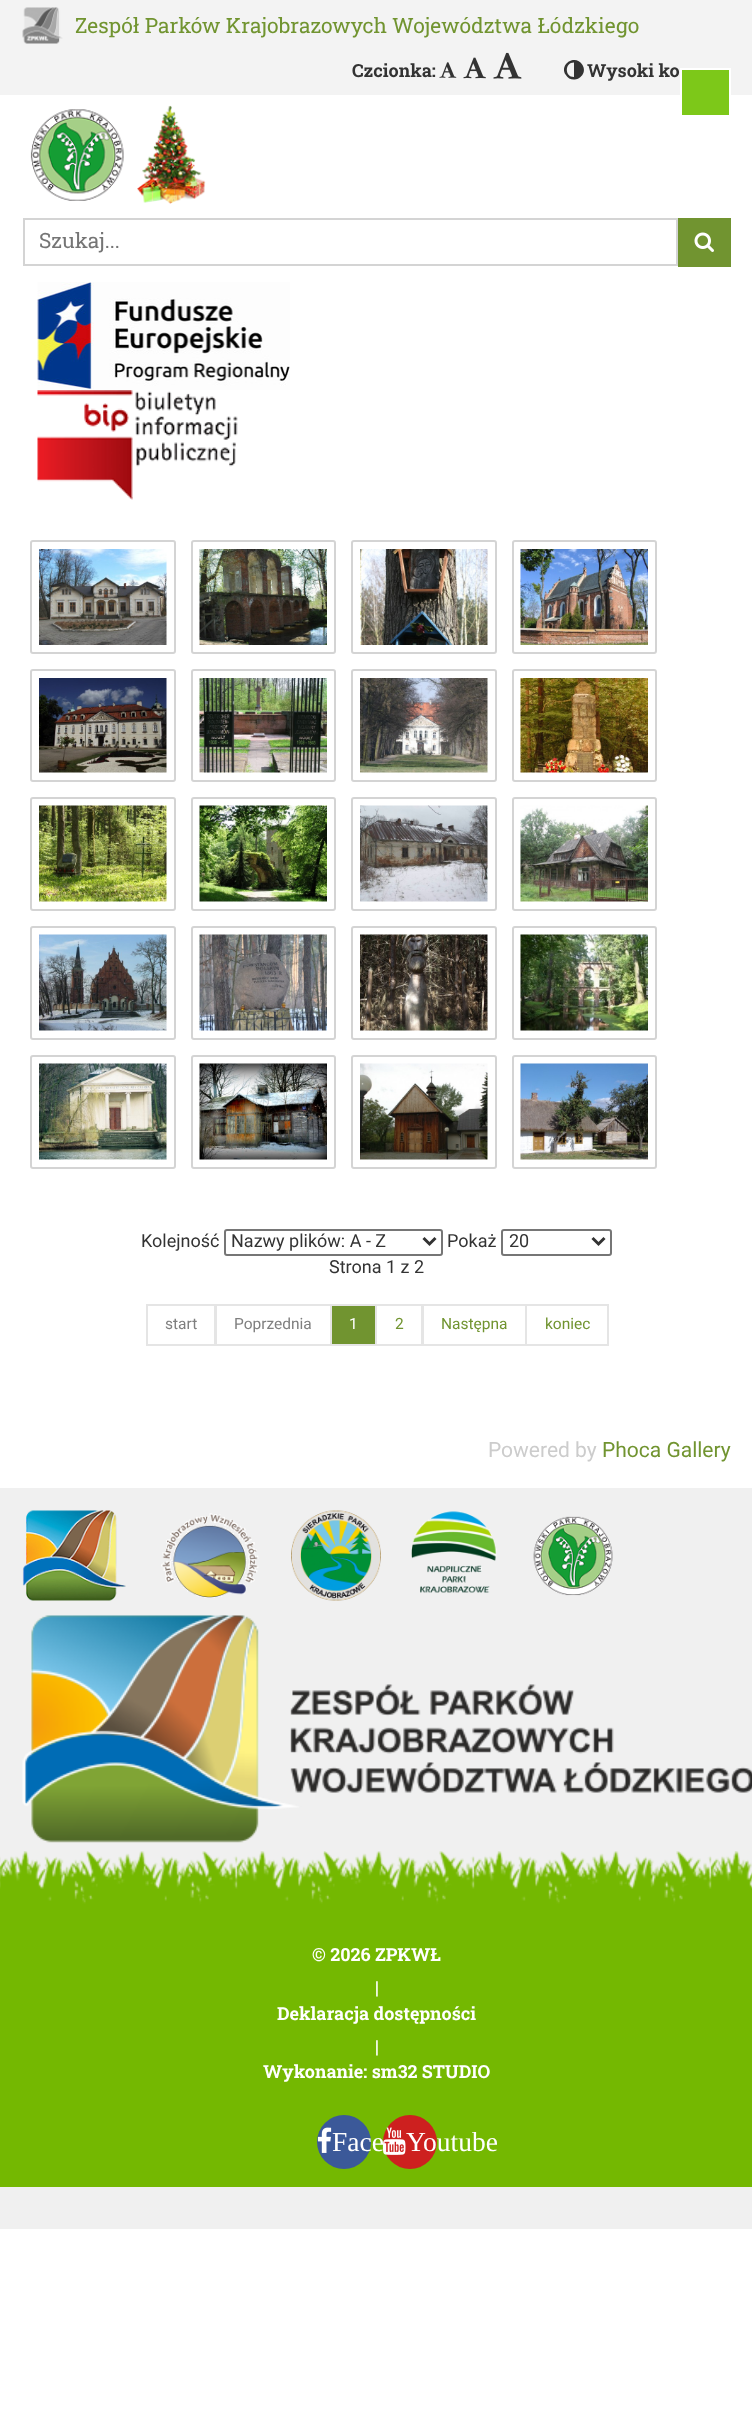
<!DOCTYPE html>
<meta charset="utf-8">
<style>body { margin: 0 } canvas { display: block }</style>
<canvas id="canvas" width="752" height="2435"></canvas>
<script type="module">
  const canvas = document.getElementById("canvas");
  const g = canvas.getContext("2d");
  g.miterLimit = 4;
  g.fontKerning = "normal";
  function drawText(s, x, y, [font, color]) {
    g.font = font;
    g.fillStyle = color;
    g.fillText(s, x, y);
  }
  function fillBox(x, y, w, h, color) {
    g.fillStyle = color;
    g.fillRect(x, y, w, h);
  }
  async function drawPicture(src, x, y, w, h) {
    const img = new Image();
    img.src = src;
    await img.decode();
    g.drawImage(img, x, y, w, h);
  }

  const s1 = ["21px Roboto Slab", "#719430"];
  const s2 = ["bold 18px Roboto Slab", "#333333"];
  const s3 = ["21px Roboto Slab", "#757575"];
  const s4 = ["18px Roboto", "#333333"];
  const s5 = ["15.5px Roboto", "#7F7F7F"];
  const s6 = ["15.5px Roboto", "#FFFFFF"];
  const s7 = ["15.5px Roboto", "#719430"];
  const s8 = ["21px Roboto", "#CCCCCC"];
  const s9 = ["21px Roboto", "#719430"];
  const s10 = ["bold 18px Roboto Slab", "#FFFFFF"];
  const s11 = ["27.5px Liberation Serif", "#FFFFFF"];

  fillBox(0, 0, 752, 2435, "#FFFFFF");
  fillBox(0, 0, 752, 95, "#F3F3F3");
  await drawPicture("pic1.png", 22, 7, 41, 37);
  drawText("Zespół Parków Krajobrazowych Województwa Łódzkiego", 75, 33, s1);
  drawText("Czcionka:", 352, 77, s2);
  await drawPicture("pic2.png", 439, 62, 18, 16);
  await drawPicture("pic3.png", 463, 57, 23, 22);
  await drawPicture("pic4.png", 493, 52, 29, 27);
  g.beginPath();
  g.moveTo(574, 77);
  g.lineTo(574, 62.5);
  g.bezierCurveTo(564.5, 62.5, 564.5, 77, 574, 77);
  g.closePath();
  g.moveTo(582.5, 65);
  g.bezierCurveTo(589, 76, 572, 86, 565.5, 74.5);
  g.bezierCurveTo(559, 63.5, 576, 53.5, 582.5, 65);
  g.closePath();
  g.fill();
  drawText("Wysoki ko", 587, 77, s2);
  await drawPicture("pic5.png", 30, 105, 176, 99);
  g.strokeStyle = "#D4D4D4";
  g.lineWidth = 2;
  g.strokeRect(24, 219, 653, 46);
  drawText("Szukaj...", 39, 248, s3);
  fillBox(678, 218, 53, 49, "#719430");
  await drawPicture("pic6.png", 694, 232, 20, 20);
  await drawPicture("pic7.png", 37, 282, 253, 108);
  await drawPicture("pic8.png", 37, 390, 201, 110);
  g.fillStyle = "#7DC819";
  g.beginPath();
  g.rect(681, 69, 49, 47);
  g.fill();
  g.strokeStyle = "#FFFFFF";
  g.stroke();
  g.beginPath();
  g.roundRect(31, 541, 144, 112, 2);
  g.strokeStyle = "#D4D4D4";
  g.stroke();
  await drawPicture("pic9.png", 39, 549, 128, 96);
  g.beginPath();
  g.roundRect(192, 541, 143, 112, 2);
  g.stroke();
  await drawPicture("pic10.png", 199, 549, 128, 96);
  g.beginPath();
  g.roundRect(352, 541, 144, 112, 2);
  g.stroke();
  await drawPicture("pic11.png", 360, 549, 128, 96);
  g.beginPath();
  g.roundRect(513, 541, 143, 112, 2);
  g.stroke();
  await drawPicture("pic12.png", 520, 549, 128, 96);
  g.beginPath();
  g.roundRect(31, 670, 144, 111, 2);
  g.stroke();
  await drawPicture("pic13.png", 39, 678, 128, 95);
  g.beginPath();
  g.roundRect(192, 670, 143, 111, 2);
  g.stroke();
  await drawPicture("pic14.png", 199, 678, 128, 95);
  g.beginPath();
  g.roundRect(352, 670, 144, 111, 2);
  g.stroke();
  await drawPicture("pic15.png", 360, 678, 128, 95);
  g.beginPath();
  g.roundRect(513, 670, 143, 111, 2);
  g.stroke();
  await drawPicture("pic16.png", 520, 678, 128, 95);
  g.beginPath();
  g.roundRect(31, 798, 144, 112, 2);
  g.stroke();
  await drawPicture("pic17.png", 39, 805, 128, 97);
  g.beginPath();
  g.roundRect(192, 798, 143, 112, 2);
  g.stroke();
  await drawPicture("pic18.png", 199, 805, 128, 97);
  g.beginPath();
  g.roundRect(352, 798, 144, 112, 2);
  g.stroke();
  await drawPicture("pic19.png", 360, 805, 128, 97);
  g.beginPath();
  g.roundRect(513, 798, 143, 112, 2);
  g.stroke();
  await drawPicture("pic20.png", 520, 805, 128, 97);
  g.beginPath();
  g.roundRect(31, 927, 144, 112, 2);
  g.stroke();
  await drawPicture("pic21.png", 39, 934, 128, 97);
  g.beginPath();
  g.roundRect(192, 927, 143, 112, 2);
  g.stroke();
  await drawPicture("pic22.png", 199, 934, 128, 97);
  g.beginPath();
  g.roundRect(352, 927, 144, 112, 2);
  g.stroke();
  await drawPicture("pic23.png", 360, 934, 128, 97);
  g.beginPath();
  g.roundRect(513, 927, 143, 112, 2);
  g.stroke();
  await drawPicture("pic24.png", 520, 934, 128, 97);
  g.beginPath();
  g.roundRect(31, 1056, 144, 112, 2);
  g.stroke();
  await drawPicture("pic25.png", 39, 1063, 128, 97);
  g.beginPath();
  g.roundRect(192, 1056, 143, 112, 2);
  g.stroke();
  await drawPicture("pic26.png", 199, 1063, 128, 97);
  g.beginPath();
  g.roundRect(352, 1056, 144, 112, 2);
  g.stroke();
  await drawPicture("pic27.png", 360, 1063, 128, 97);
  g.beginPath();
  g.roundRect(513, 1056, 143, 112, 2);
  g.stroke();
  await drawPicture("pic28.png", 520, 1063, 128, 97);
  drawText("Kolejność", 141, 1247, s4);
  g.beginPath();
  g.roundRect(225, 1230, 217, 25, 2);
  g.strokeStyle = "#767676";
  g.stroke();
  g.beginPath();
  g.moveTo(423.5, 1238);
  g.lineTo(429.5, 1244);
  g.lineTo(435.5, 1238);
  g.strokeStyle = "#333333";
  g.lineWidth = 3;
  g.stroke();
  drawText("Nazwy plików: A - Z", 231, 1247, s4);
  drawText("Pokaż", 447, 1247, s4);
  g.beginPath();
  g.roundRect(502, 1230, 109, 25, 2);
  g.strokeStyle = "#767676";
  g.lineWidth = 2;
  g.stroke();
  g.beginPath();
  g.moveTo(592.5, 1238);
  g.lineTo(598.5, 1244);
  g.lineTo(604.5, 1238);
  g.strokeStyle = "#333333";
  g.lineWidth = 3;
  g.stroke();
  drawText("20", 509, 1247, s4);
  drawText("Strona 1 z 2", 329, 1273, s4);
  g.strokeStyle = "#E5E5E5";
  g.lineWidth = 2;
  g.strokeRect(147, 1305, 68, 40);
  drawText("start", 165, 1329, s5);
  g.strokeRect(216, 1305, 115, 40);
  drawText("Poprzednia", 234, 1329, s5);
  g.fillStyle = "#719430";
  g.beginPath();
  g.rect(331, 1305, 45, 40);
  g.fill();
  g.stroke();
  drawText("1", 349, 1329, s6);
  g.strokeRect(376, 1305, 46, 40);
  drawText("2", 395, 1329, s7);
  g.strokeRect(423, 1305, 103, 40);
  drawText("Następna", 441, 1329, s7);
  g.strokeRect(526, 1305, 82, 40);
  drawText("koniec", 545, 1329, s7);
  drawText("Powered by", 488, 1457, s8);
  drawText("Phoca Gallery", 602, 1457, s9);
  fillBox(0, 1488, 752, 741, "#F0F0F0");
  await drawPicture("pic29.png", 22, 1510, 104, 91);
  await drawPicture("pic30.png", 161, 1513, 98, 85);
  await drawPicture("pic31.png", 291, 1510, 90, 91);
  await drawPicture("pic32.png", 411, 1511, 86, 82);
  await drawPicture("pic33.png", 533, 1516, 80, 80);
  await drawPicture("pic34.png", 22, 1615, 730, 228);
  await drawPicture("pic35.png", 0, 1851, 752, 336);
  drawText("© 2026 ZPKWŁ", 312, 1961, s10);
  drawText("|", 375, 1994, s10);
  drawText("Deklaracja dostępności", 277, 2020, s10);
  drawText("|", 375, 2053, s10);
  drawText("Wykonanie: sm32 STUDIO", 263, 2078, s10);
  g.fillStyle = "#3B5999";
  g.beginPath();
  g.arc(344, 2142, 27, 0, Math.PI * 2);
  g.fill();
  await drawPicture("pic36.png", 317, 2127, 15, 26);
  drawText("Face", 332, 2151, s11);
  g.fillStyle = "#CD201F";
  g.beginPath();
  g.arc(410, 2142, 27, 0, Math.PI * 2);
  g.fill();
  await drawPicture("pic37.png", 382, 2127, 24, 28);
  drawText("Youtube", 406, 2151, s11);
</script>
